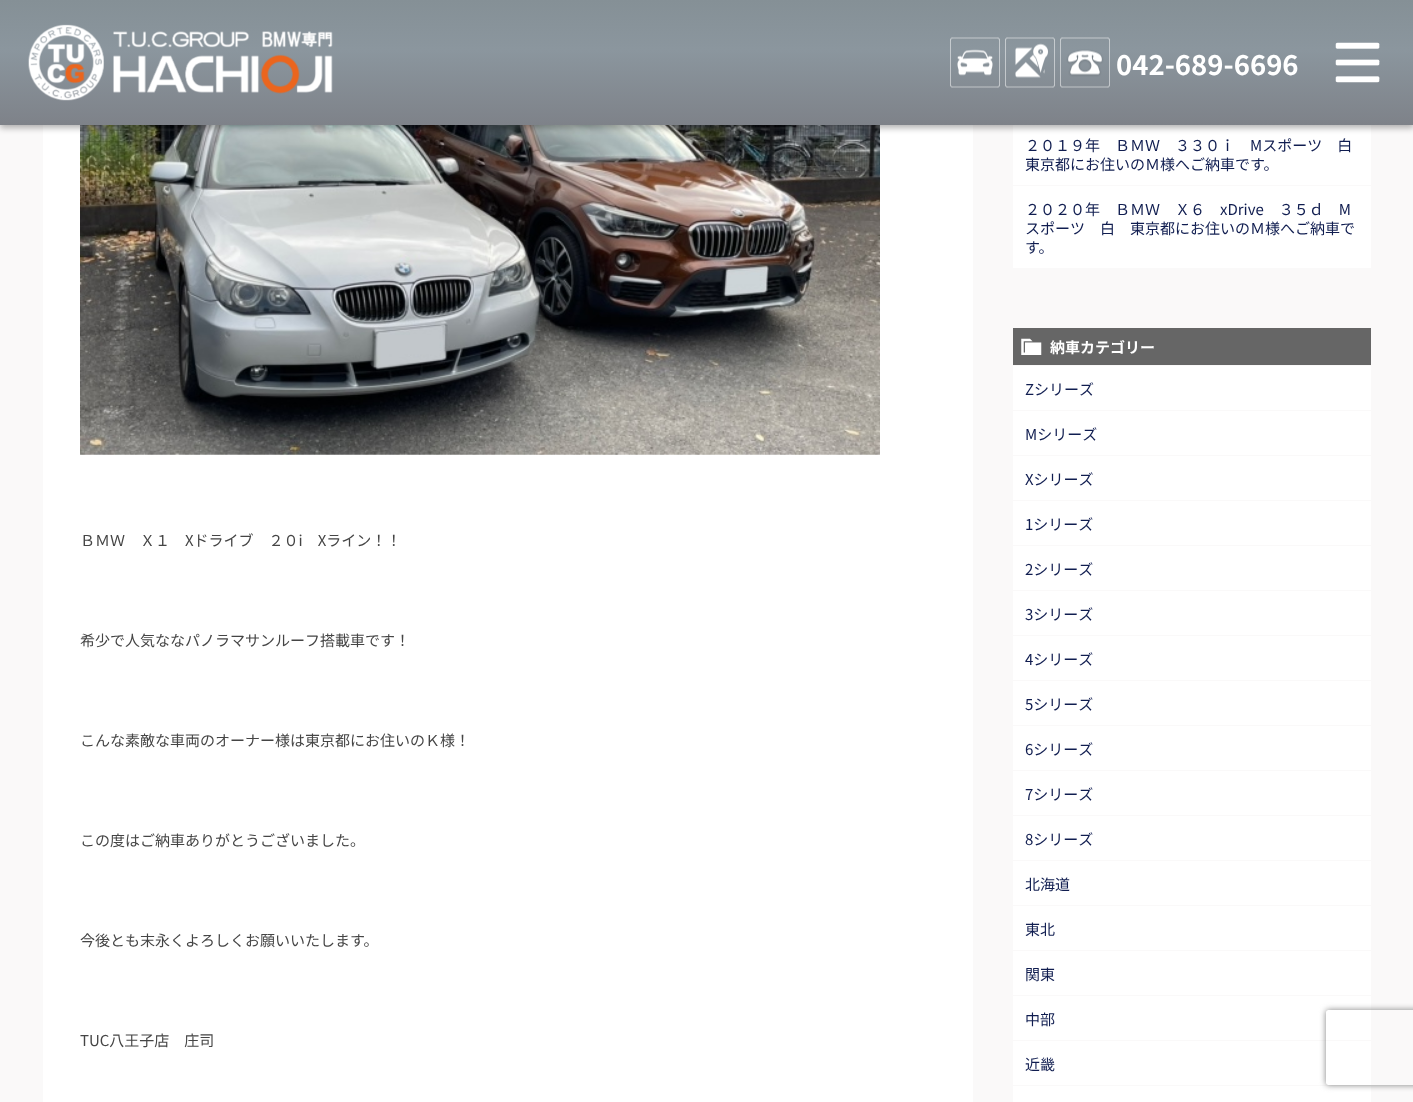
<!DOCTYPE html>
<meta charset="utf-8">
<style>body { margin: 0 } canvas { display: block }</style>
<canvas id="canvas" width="1413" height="1102"></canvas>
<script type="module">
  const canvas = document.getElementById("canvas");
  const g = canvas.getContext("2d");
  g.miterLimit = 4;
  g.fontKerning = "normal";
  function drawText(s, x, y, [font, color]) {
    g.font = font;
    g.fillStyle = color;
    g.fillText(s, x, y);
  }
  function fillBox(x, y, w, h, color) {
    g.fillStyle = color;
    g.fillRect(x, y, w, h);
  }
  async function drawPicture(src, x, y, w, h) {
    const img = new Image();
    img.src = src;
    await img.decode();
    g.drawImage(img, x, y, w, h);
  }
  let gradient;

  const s1 = ["bold 27.5px Noto Sans JP", "#FFFFFF"];
  const s2 = ["15px Noto Sans JP", "#454545"];
  const s3 = ["15px Noto Sans JP", "#101D50"];
  const s4 = ["bold 15px Noto Sans JP", "#FFFFFF"];

  fillBox(0, 0, 1413, 1102, "#FAF9F9");
  fillBox(43, 125, 930, 977, "#FFFFFF");
  await drawPicture("pic6.png", 80, 125, 800, 330);
  fillBox(1013, 125, 358, 60, "#FFFFFF");
  g.fillStyle = "rgba(0, 0, 0, 0.3)";
  g.filter = "blur(3px)";
  g.beginPath();
  g.rect(0, 3, 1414, 125);
  g.fill();
  g.filter = "none";
  gradient = g.createLinearGradient(707, 0, 707, 125);
  gradient.addColorStop(0, "#859096");
  gradient.addColorStop(0.4, "#8B969E");
  gradient.addColorStop(1, "#7E8289");
  g.fillStyle = gradient;
  g.fillRect(0, 0, 1413, 125);
  await drawPicture("pic1.png", 28, 24, 305, 77);
  await drawPicture("pic2.png", 950, 37, 50, 51);
  await drawPicture("pic3.png", 1005, 37, 50, 51);
  await drawPicture("pic4.png", 1060, 37, 50, 51);
  drawText("042-689-6696", 1116, 75, s1);
  await drawPicture("pic5.png", 1335, 42, 45, 41);
  drawText("ＢＭＷ　Ｘ１　Xドライブ　２０i　Xライン！！", 80, 546, s2);
  drawText("希少で人気ななパノラマサンルーフ搭載車です！", 80, 646, s2);
  drawText("こんな素敵な車両のオーナー様は東京都にお住いのＫ様！", 80, 746, s2);
  drawText("この度はご納車ありがとうございました。", 80, 846, s2);
  drawText("今後とも末永くよろしくお願いいたします。", 80, 946, s2);
  drawText("TUC八王子店　庄司", 80, 1046, s2);
  drawText("２０１９年　ＢＭＷ　３３０ｉ　Mスポーツ　白", 1025, 151, s3);
  drawText("東京都にお住いのＭ様へご納車です。", 1025, 170, s3);
  fillBox(1013, 186, 358, 82, "#FFFFFF");
  drawText("２０２０年　ＢＭＷ　Ｘ６　xDrive　３５ｄ　M", 1025, 215, s3);
  drawText("スポーツ　白　東京都にお住いのＭ様へご納車で", 1025, 234, s3);
  drawText("す。", 1025, 253, s3);
  fillBox(1013, 328, 358, 37, "#666666");
  await drawPicture("pic7.png", 1021, 338, 21, 17);
  drawText("納車カテゴリー", 1050, 353, s4);
  fillBox(1013, 366, 358, 44, "#FFFFFF");
  drawText("Zシリーズ", 1025, 395, s3);
  fillBox(1013, 411, 358, 44, "#FFFFFF");
  drawText("Mシリーズ", 1025, 440, s3);
  fillBox(1013, 456, 358, 44, "#FFFFFF");
  drawText("Xシリーズ", 1025, 485, s3);
  fillBox(1013, 501, 358, 44, "#FFFFFF");
  drawText("1シリーズ", 1025, 530, s3);
  fillBox(1013, 546, 358, 44, "#FFFFFF");
  drawText("2シリーズ", 1025, 575, s3);
  fillBox(1013, 591, 358, 44, "#FFFFFF");
  drawText("3シリーズ", 1025, 620, s3);
  fillBox(1013, 636, 358, 44, "#FFFFFF");
  drawText("4シリーズ", 1025, 665, s3);
  fillBox(1013, 681, 358, 44, "#FFFFFF");
  drawText("5シリーズ", 1025, 710, s3);
  fillBox(1013, 726, 358, 44, "#FFFFFF");
  drawText("6シリーズ", 1025, 755, s3);
  fillBox(1013, 771, 358, 44, "#FFFFFF");
  drawText("7シリーズ", 1025, 800, s3);
  fillBox(1013, 816, 358, 44, "#FFFFFF");
  drawText("8シリーズ", 1025, 845, s3);
  fillBox(1013, 861, 358, 44, "#FFFFFF");
  drawText("北海道", 1025, 890, s3);
  fillBox(1013, 906, 358, 44, "#FFFFFF");
  drawText("東北", 1025, 935, s3);
  fillBox(1013, 951, 358, 44, "#FFFFFF");
  drawText("関東", 1025, 980, s3);
  fillBox(1013, 996, 358, 44, "#FFFFFF");
  drawText("中部", 1025, 1025, s3);
  fillBox(1013, 1041, 358, 44, "#FFFFFF");
  drawText("近畿", 1025, 1070, s3);
  fillBox(1013, 1086, 358, 16, "#FFFFFF");
  g.save();
  g.beginPath();
  g.moveTo(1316, 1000);
  g.lineTo(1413, 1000);
  g.lineTo(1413, 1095);
  g.lineTo(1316, 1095);
  g.closePath();
  g.moveTo(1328.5, 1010);
  g.lineTo(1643.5, 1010);
  g.bezierCurveTo(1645, 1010, 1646, 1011, 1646, 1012.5);
  g.lineTo(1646, 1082.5);
  g.bezierCurveTo(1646, 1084, 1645, 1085, 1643.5, 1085);
  g.lineTo(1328.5, 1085);
  g.bezierCurveTo(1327, 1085, 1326, 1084, 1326, 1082.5);
  g.lineTo(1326, 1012.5);
  g.bezierCurveTo(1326, 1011, 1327, 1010, 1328.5, 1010);
  g.closePath();
  g.clip("evenodd");
  g.fillStyle = "#808080";
  g.filter = "blur(3px)";
  g.beginPath();
  g.roundRect(1326, 1010, 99, 75, 2.5);
  g.fill();
  g.filter = "none";
  g.restore();
</script>
